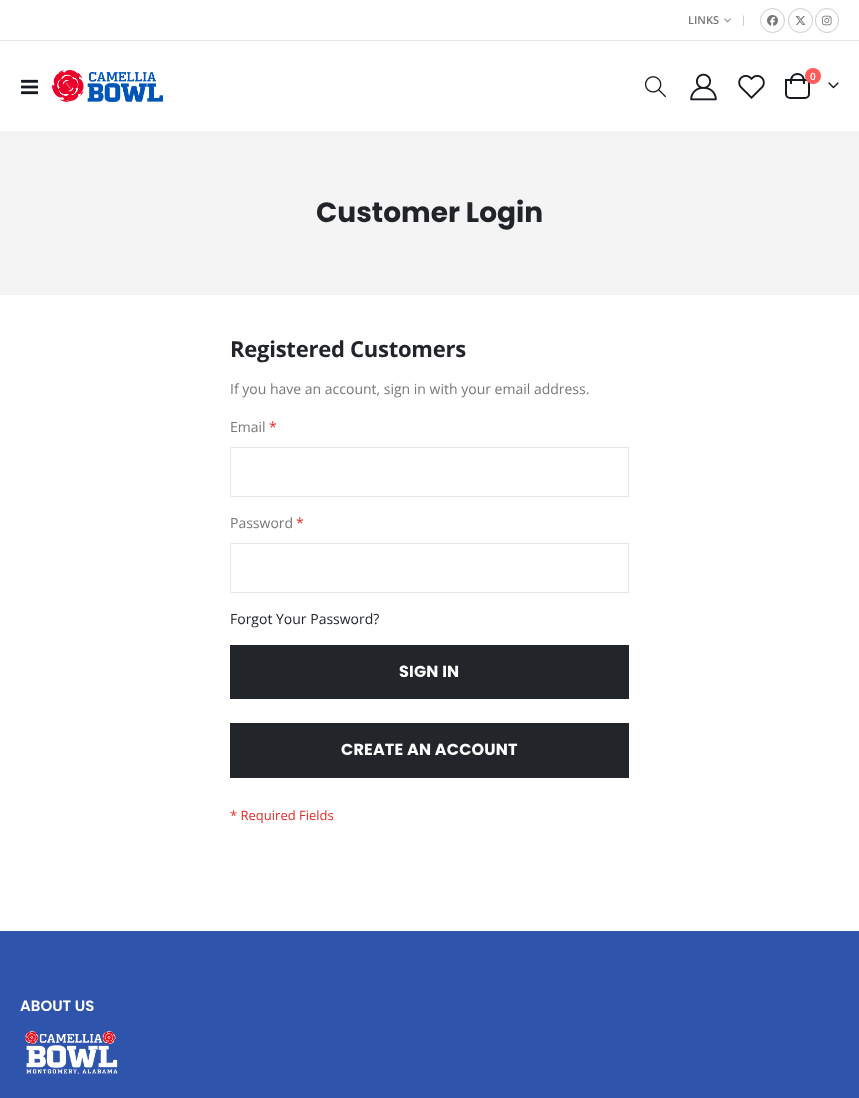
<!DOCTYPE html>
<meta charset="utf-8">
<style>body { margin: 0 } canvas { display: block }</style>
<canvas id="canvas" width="859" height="1098"></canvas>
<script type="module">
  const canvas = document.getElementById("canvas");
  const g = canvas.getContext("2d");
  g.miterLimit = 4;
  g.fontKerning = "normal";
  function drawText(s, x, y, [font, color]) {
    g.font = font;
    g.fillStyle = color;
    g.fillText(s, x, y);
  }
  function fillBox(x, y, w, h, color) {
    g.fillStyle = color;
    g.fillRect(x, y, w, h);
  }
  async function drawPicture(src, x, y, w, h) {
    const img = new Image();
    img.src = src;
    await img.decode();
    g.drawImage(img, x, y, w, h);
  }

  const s1 = ["600 11px Open Sans", "#777777"];
  const s2 = ["300 10px Open Sans", "#929292"];
  const s3 = ["600 10px Open Sans", "#FFFFFF"];
  const s4 = ["bold 28px Poppins", "#212529"];
  const s5 = ["bold 22px Open Sans", "#212529"];
  const s6 = ["14px Open Sans", "#777777"];
  const s7 = ["14px Open Sans", "#E02B27"];
  const s8 = ["14px Open Sans", "#212529"];
  const s9 = ["bold 16px Poppins", "#FFFFFF"];
  const s10 = ["13px Open Sans", "#E02B27"];
  const s11 = ["600 15px Poppins", "#FFFFFF"];

  fillBox(0, 0, 859, 1098, "#FFFFFF");
  fillBox(0, 40, 859, 1, "#E7E7E7");
  drawText("LINKS", 688, 24, s1);
  await drawPicture("pic1.png", 724, 18, 7, 5);
  drawText("|", 741, 23, s2);
  g.beginPath();
  g.arc(772.5, 20.5, 12, 0, Math.PI * 2);
  g.strokeStyle = "#CCCCCC";
  g.stroke();
  await drawPicture("pic2.png", 767, 15, 11, 11);
  g.beginPath();
  g.arc(800.5, 20.5, 12, 0, Math.PI * 2);
  g.stroke();
  await drawPicture("pic3.png", 795, 16, 11, 9);
  g.beginPath();
  g.roundRect(815.5, 8.5, 23, 24, 11.5);
  g.stroke();
  await drawPicture("pic4.png", 822, 15, 10, 11);
  await drawPicture("pic5.png", 21, 79, 17, 16);
  await drawPicture("pic6.png", 52, 70, 111, 32);
  await drawPicture("pic7.png", 644, 76, 22, 22);
  await drawPicture("pic8.png", 690, 73, 27, 28);
  await drawPicture("pic9.png", 738, 74, 27, 25);
  g.beginPath();
  g.roundRect(786, 80, 23, 18, [0, 0, 4, 4]);
  g.strokeStyle = "#141A1F";
  g.lineWidth = 2;
  g.stroke();
  g.fillStyle = "#141A1F";
  g.beginPath();
  g.moveTo(797.5, 73);
  g.bezierCurveTo(801.5, 73, 805, 76.5, 805, 80.5);
  g.lineTo(805, 84);
  g.lineTo(790, 84);
  g.lineTo(790, 80.5);
  g.bezierCurveTo(790, 76.5, 793.5, 73, 797.5, 73);
  g.closePath();
  g.moveTo(797.5, 75);
  g.bezierCurveTo(803, 75, 803, 80, 803, 84);
  g.lineTo(792, 84);
  g.bezierCurveTo(792, 80, 792, 75, 797.5, 75);
  g.closePath();
  g.fill("evenodd");
  g.fillStyle = "#FF5B5B";
  g.beginPath();
  g.arc(813, 76, 8, 0, Math.PI * 2);
  g.fill();
  drawText("0", 810, 80, s3);
  await drawPicture("pic10.png", 828, 82, 11, 7);
  fillBox(0, 131, 859, 164, "#F4F4F4");
  drawText("Customer Login", 316, 222, s4);
  g.letterSpacing = "-0.25px";
  drawText("Registered Customers", 230, 357, s5);
  g.letterSpacing = "0px";
  drawText("If you have an account, sign in with your email address.", 230, 394, s6);
  drawText("Email", 230, 432, s6);
  drawText("*", 269, 432, s7);
  g.strokeStyle = "#E8E8E8";
  g.lineWidth = 1;
  g.strokeRect(230.5, 447.5, 398, 49);
  drawText("Password", 230, 528, s6);
  drawText("*", 296, 528, s7);
  g.strokeRect(230.5, 543.5, 398, 49);
  drawText("Forgot Your Password?", 230, 624, s8);
  fillBox(230, 645, 399, 54, "#222529");
  g.letterSpacing = "0.2px";
  drawText("SIGN IN", 399, 677, s9);
  fillBox(230, 723, 399, 55, "#222529");
  drawText("CREATE AN ACCOUNT", 341, 755, s9);
  g.letterSpacing = "0px";
  drawText("* Required Fields", 230, 820, s10);
  fillBox(0, 931, 859, 167, "#2F54AC");
  drawText("ABOUT US", 20, 1011, s11);
  await drawPicture("pic11.png", 25, 1031, 93, 43);
</script>
